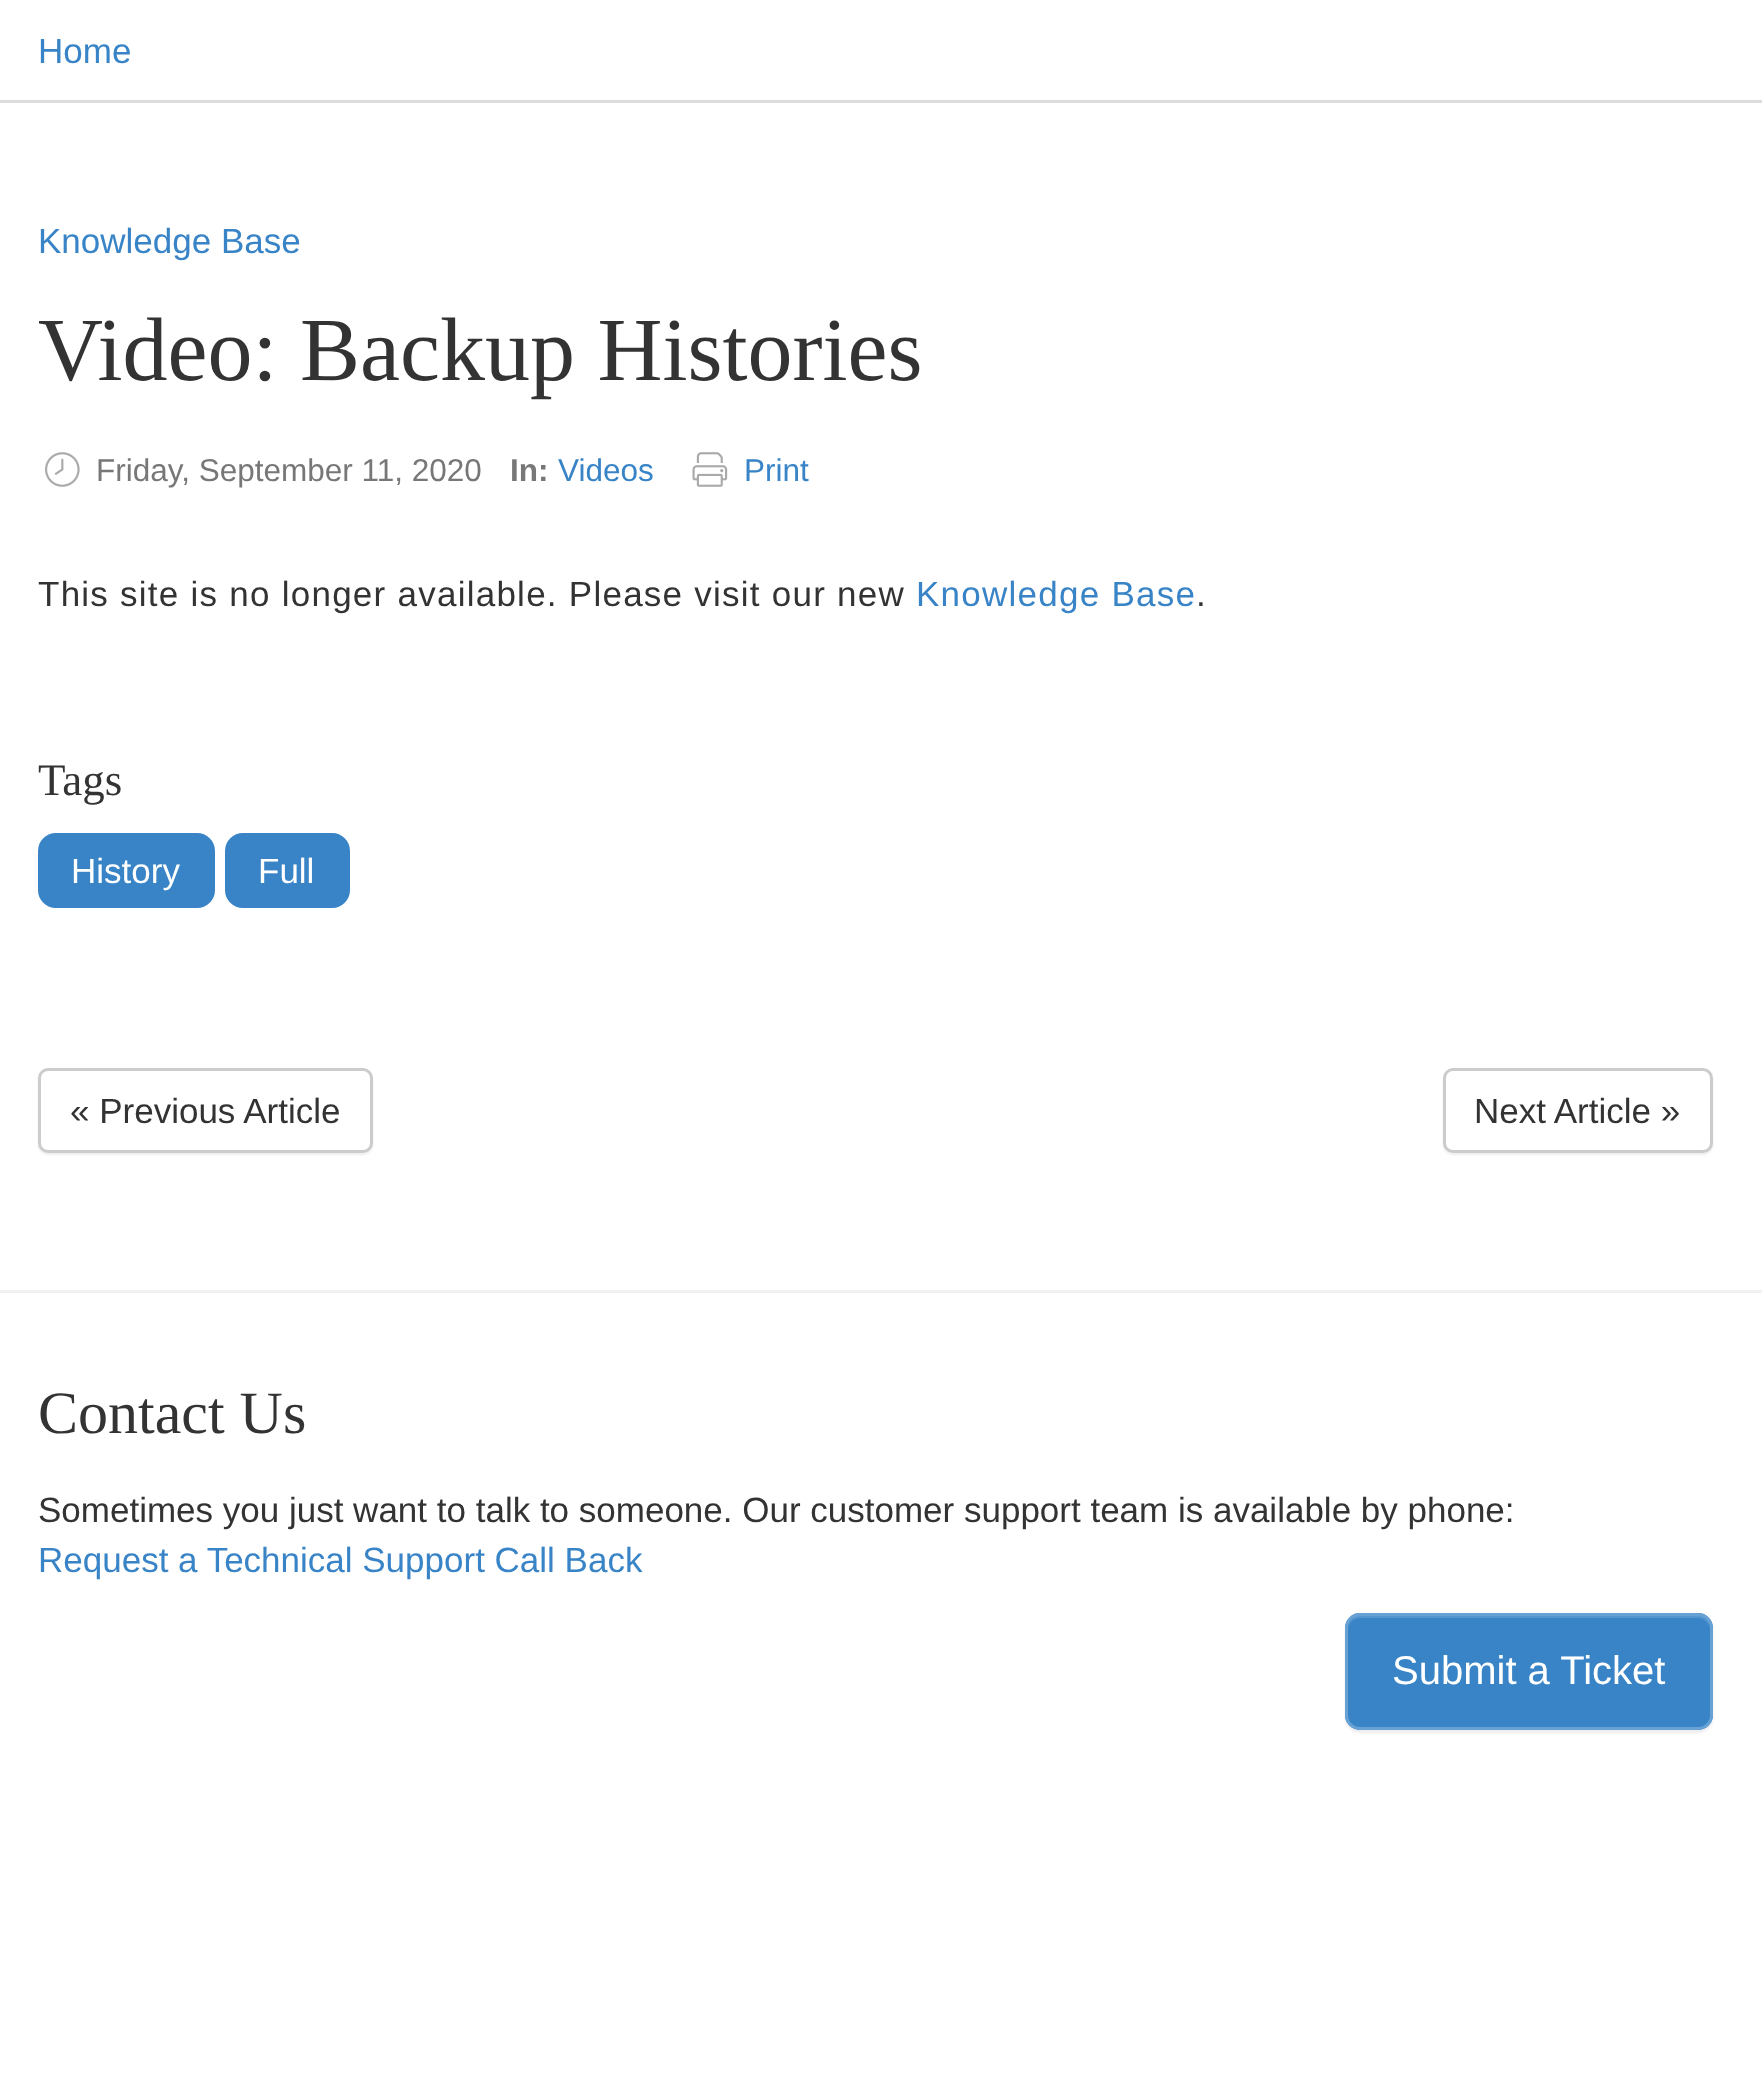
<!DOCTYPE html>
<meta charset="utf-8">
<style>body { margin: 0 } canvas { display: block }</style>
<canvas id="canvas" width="1762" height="2083"></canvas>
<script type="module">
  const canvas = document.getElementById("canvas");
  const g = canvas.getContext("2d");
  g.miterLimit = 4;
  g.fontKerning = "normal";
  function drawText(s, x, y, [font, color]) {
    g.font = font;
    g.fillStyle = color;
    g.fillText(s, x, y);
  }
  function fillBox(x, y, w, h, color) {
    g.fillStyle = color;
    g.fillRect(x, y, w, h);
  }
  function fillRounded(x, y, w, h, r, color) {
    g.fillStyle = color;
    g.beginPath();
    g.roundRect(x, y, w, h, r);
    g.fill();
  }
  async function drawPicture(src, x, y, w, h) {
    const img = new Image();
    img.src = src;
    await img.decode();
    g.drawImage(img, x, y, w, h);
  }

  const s1 = ["35px Liberation Sans", "#3884C7"];
  const s2 = ["90px Liberation Serif", "#333333"];
  const s3 = ["31.5px Liberation Sans", "#777777"];
  const s4 = ["bold 31.5px Liberation Sans", "#777777"];
  const s5 = ["31.5px Liberation Sans", "#3884C7"];
  const s6 = ["35px Liberation Sans", "#333333"];
  const s7 = ["45px Liberation Serif", "#333333"];
  const s8 = ["35px Liberation Sans", "#FFFFFF"];
  const s9 = ["60px Liberation Serif", "#333333"];
  const s10 = ["40px Liberation Sans", "#FFFFFF"];

  fillBox(0, 0, 1762, 2083, "#FFFFFF");
  fillBox(0, 100, 1762, 3, "#DCDCDC");
  drawText("Home", 38, 63, s1);
  drawText("Knowledge Base", 38, 253, s1);
  drawText("Video: Backup Histories", 38, 380, s2);
  await drawPicture("pic1.png", 45, 452, 35, 35);
  drawText("Friday, September 11, 2020", 96, 481, s3);
  drawText("In:", 510, 481, s4);
  drawText("Videos", 558, 481, s5);
  await drawPicture("pic2.png", 692, 452, 36, 35);
  drawText("Print", 744, 481, s5);
  g.letterSpacing = "1.25px";
  drawText("This site is no longer available. Please visit our new", 38, 606, s6);
  drawText("Knowledge Base", 916, 606, s1);
  drawText(".", 1196, 606, s6);
  g.letterSpacing = "0px";
  drawText("Tags", 38, 795, s7);
  g.fillStyle = "#3884C7";
  g.beginPath();
  g.roundRect(39.5, 834.5, 174, 72, 16.5);
  g.fill();
  g.strokeStyle = "#3884C7";
  g.lineWidth = 3;
  g.stroke();
  drawText("History", 71, 883, s8);
  g.fillStyle = "#3884C7";
  g.beginPath();
  g.roundRect(226.5, 834.5, 122, 72, 16.5);
  g.fill();
  g.stroke();
  drawText("Full", 258, 883, s8);
  g.fillStyle = "rgba(0, 0, 0, 0.07)";
  g.filter = "blur(1px)";
  g.beginPath();
  g.roundRect(38, 1070, 335, 85, 10);
  g.fill();
  g.filter = "none";
  g.fillStyle = "#FFFFFF";
  g.beginPath();
  g.roundRect(39.5, 1069.5, 332, 82, 8.5);
  g.fill();
  g.strokeStyle = "#CCCCCC";
  g.stroke();
  drawText("« Previous Article", 70, 1123, s6);
  g.fillStyle = "rgba(0, 0, 0, 0.07)";
  g.filter = "blur(1px)";
  g.beginPath();
  g.roundRect(1443, 1070, 270, 85, 10);
  g.fill();
  g.filter = "none";
  g.fillStyle = "#FFFFFF";
  g.beginPath();
  g.roundRect(1444.5, 1069.5, 267, 82, 8.5);
  g.fill();
  g.stroke();
  drawText("Next Article »", 1474, 1123, s6);
  fillBox(0, 1290, 1762, 3, "#F1F1F1");
  drawText("Contact Us", 38, 1433, s9);
  drawText("Sometimes you just want to talk to someone. Our customer support team is available by phone:", 38, 1522, s6);
  drawText("Request a Technical Support Call Back", 38, 1572, s1);
  g.fillStyle = "rgba(0, 0, 0, 0.07)";
  g.filter = "blur(1px)";
  g.beginPath();
  g.roundRect(1345, 1615, 368, 118, 15);
  g.fill();
  g.filter = "none";
  fillRounded(1345, 1613, 368, 117, 15, "#3884C7");
  g.fillStyle = "#5696CF";
  g.beginPath();
  g.moveTo(1360, 1618);
  g.lineTo(1698, 1618);
  g.bezierCurveTo(1704, 1618, 1710, 1623, 1710, 1630);
  g.lineTo(1710, 1628);
  g.bezierCurveTo(1710, 1621, 1704, 1615, 1697, 1615);
  g.lineTo(1361, 1615);
  g.bezierCurveTo(1354, 1615, 1348, 1621, 1348, 1628);
  g.lineTo(1348, 1630);
  g.bezierCurveTo(1348, 1623, 1353, 1618, 1360, 1618);
  g.closePath();
  g.fill();
  g.beginPath();
  g.roundRect(1346.5, 1614.5, 365, 114, 13.5);
  g.strokeStyle = "#68A2D4";
  g.stroke();
  drawText("Submit a Ticket", 1392, 1684, s10);
</script>
